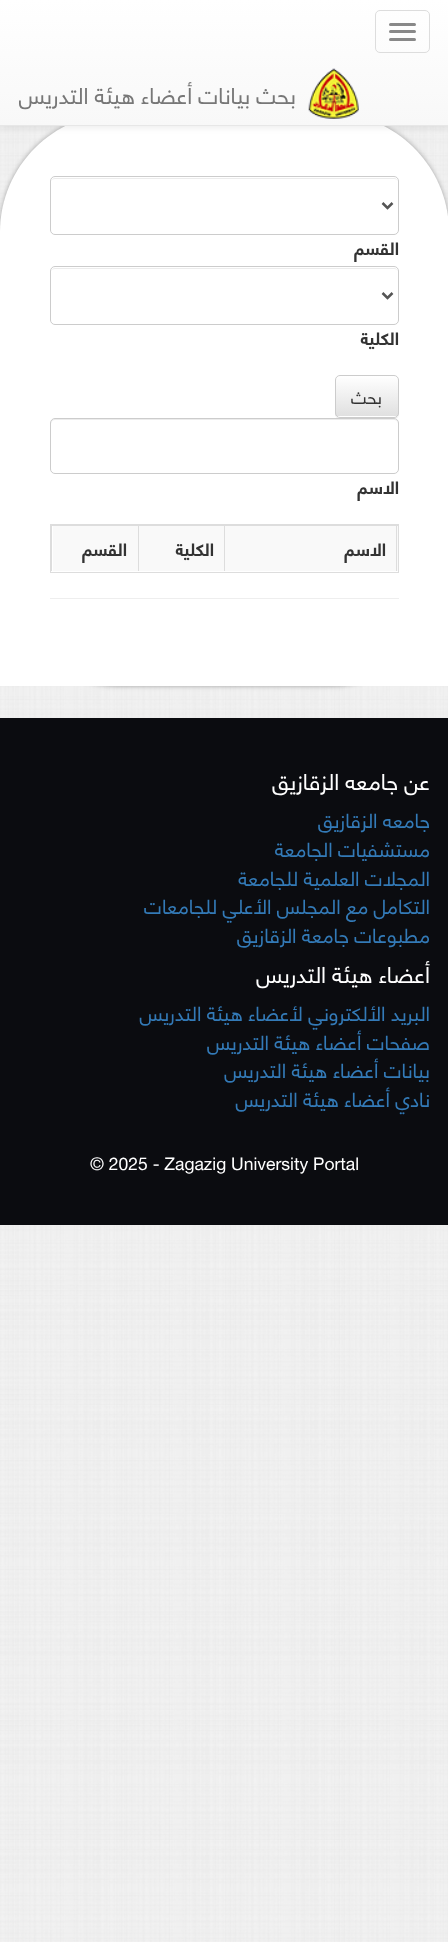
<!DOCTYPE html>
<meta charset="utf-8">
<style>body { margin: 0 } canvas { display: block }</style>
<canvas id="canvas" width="448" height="1942"></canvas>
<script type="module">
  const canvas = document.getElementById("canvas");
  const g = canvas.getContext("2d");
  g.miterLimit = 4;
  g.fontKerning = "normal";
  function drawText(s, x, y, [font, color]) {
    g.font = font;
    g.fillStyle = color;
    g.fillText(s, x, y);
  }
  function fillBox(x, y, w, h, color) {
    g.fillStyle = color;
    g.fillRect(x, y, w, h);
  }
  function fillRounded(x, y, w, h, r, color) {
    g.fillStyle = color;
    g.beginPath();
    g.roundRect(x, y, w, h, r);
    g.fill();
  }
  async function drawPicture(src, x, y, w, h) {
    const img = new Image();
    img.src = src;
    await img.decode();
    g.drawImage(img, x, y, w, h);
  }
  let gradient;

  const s1 = ["22.5px 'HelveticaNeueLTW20'", "#777777"];
  const s2 = ["bold 17.5px 'HelveticaNeueLTW20'", "#333333"];
  const s3 = ["17.5px 'HelveticaNeueLTW20'", "#333333"];
  const s4 = ["22.5px 'HelveticaNeueLTW20'", "#FFFFFF"];
  const s5 = ["20px 'HelveticaNeueLTW20'", "#337AB7"];
  const s6 = ["17.5px 'HelveticaNeueLTW20'", "#FFFFFF"];

  fillBox(0, 0, 448, 1942, "#FFFFFF");
  await drawPicture("pic1.png", 0, 126, 448, 1816);
  g.fillStyle = "rgba(50, 50, 50, 0.4)";
  g.filter = "blur(2.5px)";
  g.beginPath();
  g.roundRect(0, 113, 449, 573, 119);
  g.fill();
  g.filter = "none";
  g.fillStyle = "#FFFFFF";
  g.beginPath();
  g.moveTo(119, 113);
  g.lineTo(330, 113);
  g.bezierCurveTo(395.5, 113, 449, 166.5, 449, 232);
  g.lineTo(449, 686);
  g.lineTo(0, 686);
  g.lineTo(0, 232);
  g.bezierCurveTo(0, 166.5, 53.5, 113, 119, 113);
  g.closePath();
  g.fill();
  g.fillStyle = "rgba(0, 0, 0, 0.07)";
  g.filter = "blur(3px)";
  g.beginPath();
  g.rect(0, 1, 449, 127);
  g.fill();
  g.filter = "none";
  gradient = g.createLinearGradient(224, 0, 224, 125);
  gradient.addColorStop(0, "#FFFFFF");
  gradient.addColorStop(1, "#F8F8F8");
  g.fillStyle = gradient;
  g.fillRect(0, 0, 448, 125);
  fillBox(0, 125, 448, 1, "#E7E7E7");
  g.beginPath();
  g.roundRect(375.5, 10.5, 54, 42, 4.5);
  g.strokeStyle = "#DDDDDD";
  g.stroke();
  fillRounded(389, 23, 27, 3, 1.5, "#888888");
  fillRounded(389, 30, 27, 3, 1.5, "#888888");
  fillRounded(389, 38, 27, 3, 1.5, "#888888");
  await drawPicture("pic2.png", 308, 68, 51, 51);
  g.direction = "rtl";
  drawText("بحث بيانات أعضاء هيئة التدريس", 296, 104, s1);
  g.fillStyle = "#ECECEC";
  g.beginPath();
  g.moveTo(55, 179);
  g.lineTo(394, 179);
  g.bezierCurveTo(396, 179, 398, 180, 398, 182);
  g.bezierCurveTo(398, 180, 396, 178, 394, 178);
  g.lineTo(55, 178);
  g.bezierCurveTo(53, 178, 51, 180, 51, 182);
  g.bezierCurveTo(51, 180, 53, 179, 55, 179);
  g.closePath();
  g.fill();
  g.beginPath();
  g.roundRect(50.5, 176.5, 348, 58, 4.5);
  g.strokeStyle = "#CCCCCC";
  g.stroke();
  g.beginPath();
  g.moveTo(382.5, 203);
  g.lineTo(387.5, 208);
  g.lineTo(392.5, 203);
  g.strokeStyle = "#555555";
  g.lineWidth = 2.5;
  g.stroke();
  drawText("القسم", 399, 255, s2);
  g.fillStyle = "#ECECEC";
  g.beginPath();
  g.moveTo(55, 269);
  g.lineTo(394, 269);
  g.bezierCurveTo(396, 269, 398, 270, 398, 272);
  g.bezierCurveTo(398, 270, 396, 268, 394, 268);
  g.lineTo(55, 268);
  g.bezierCurveTo(53, 268, 51, 270, 51, 272);
  g.bezierCurveTo(51, 270, 53, 269, 55, 269);
  g.closePath();
  g.fill();
  g.beginPath();
  g.roundRect(50.5, 266.5, 348, 58, 4.5);
  g.strokeStyle = "#CCCCCC";
  g.lineWidth = 1;
  g.stroke();
  g.beginPath();
  g.moveTo(382.5, 293);
  g.lineTo(387.5, 298);
  g.lineTo(392.5, 293);
  g.strokeStyle = "#555555";
  g.lineWidth = 2.5;
  g.stroke();
  drawText("الكلية", 399, 345, s2);
  g.fillStyle = "rgba(0, 0, 0, 0.07)";
  g.filter = "blur(0.5px)";
  g.beginPath();
  g.roundRect(335, 376, 64, 43, 5);
  g.fill();
  g.filter = "none";
  fillRounded(335, 375, 64, 43, 5, "#FFFFFF");
  g.save();
  g.beginPath();
  g.roundRect(335, 375, 64, 43, 5);
  g.clip();
  gradient = g.createLinearGradient(367, 376, 367, 416);
  gradient.addColorStop(0, "#FFFFFF");
  gradient.addColorStop(1, "#E0E0E0");
  g.fillStyle = gradient;
  g.fillRect(335, 376, 64, 40);
  g.restore();
  g.beginPath();
  g.roundRect(335.5, 375.5, 63, 42, 4.5);
  g.strokeStyle = "#CCCCCC";
  g.lineWidth = 1;
  g.stroke();
  drawText("بحث", 382, 404, s3);
  fillRounded(50, 418, 349, 56, 5, "#FFFFFF");
  g.fillStyle = "#ECECEC";
  g.beginPath();
  g.moveTo(55, 420);
  g.lineTo(394, 420);
  g.bezierCurveTo(396, 420, 398, 422, 398, 424);
  g.lineTo(398, 423);
  g.bezierCurveTo(398, 421, 396, 419, 394, 419);
  g.lineTo(55, 419);
  g.bezierCurveTo(53, 419, 51, 421, 51, 423);
  g.lineTo(51, 424);
  g.bezierCurveTo(51, 422, 53, 420, 55, 420);
  g.closePath();
  g.fill();
  g.beginPath();
  g.roundRect(50.5, 418.5, 348, 55, 4.5);
  g.stroke();
  drawText("الاسم", 399, 494, s2);
  g.strokeStyle = "#DDDDDD";
  g.strokeRect(50.5, 524.5, 348, 48);
  fillBox(53, 526, 345, 45, "#F9F9F9");
  fillBox(51, 525, 174, 1, "#DDDDDD");
  fillBox(224, 525, 1, 46, "#DDDDDD");
  fillBox(224, 525, 174, 1, "#DDDDDD");
  fillBox(396, 525, 1, 46, "#DDDDDD");
  drawText("الاسم", 386, 556, s2);
  fillBox(138, 525, 1, 46, "#DDDDDD");
  drawText("الكلية", 214, 556, s2);
  fillBox(51, 525, 1, 46, "#DDDDDD");
  drawText("القسم", 127, 556, s2);
  fillBox(50, 598, 349, 1, "#EEEEEE");
  fillBox(0, 718, 448, 507, "#0B0C10");
  drawText("عن جامعه الزقازيق", 430, 790, s4);
  drawText("جامعه الزقازيق", 430, 828, s5);
  drawText("مستشفيات الجامعة", 430, 857, s5);
  drawText("المجلات العلمية للجامعة", 430, 886, s5);
  drawText("التكامل مع المجلس الأعلي للجامعات", 430, 914, s5);
  drawText("مطبوعات جامعة الزقازيق", 430, 943, s5);
  drawText("أعضاء هيئة التدريس", 430, 983, s4);
  drawText("البريد الألكتروني لأعضاء هيئة التدريس", 430, 1021, s5);
  drawText("صفحات أعضاء هيئة التدريس", 430, 1050, s5);
  drawText("بيانات أعضاء هيئة التدريس", 430, 1078, s5);
  drawText("نادي أعضاء هيئة التدريس", 430, 1107, s5);
  g.direction = "ltr";
  drawText("© 2025 - Zagazig University Portal", 90, 1170, s6);
</script>
